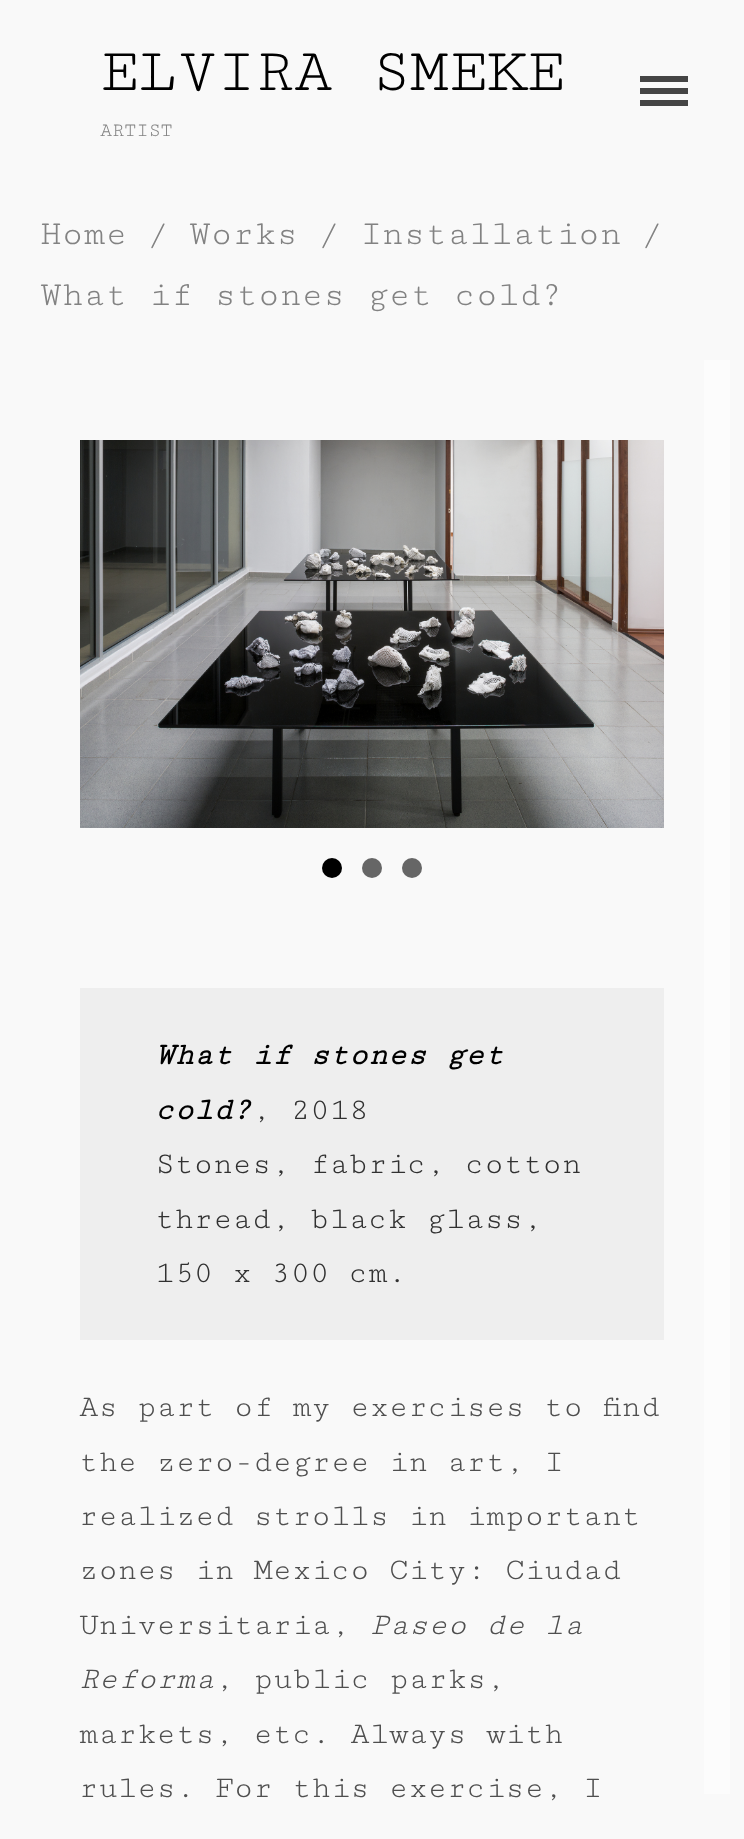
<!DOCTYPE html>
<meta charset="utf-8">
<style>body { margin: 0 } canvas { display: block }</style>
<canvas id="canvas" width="744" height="1839"></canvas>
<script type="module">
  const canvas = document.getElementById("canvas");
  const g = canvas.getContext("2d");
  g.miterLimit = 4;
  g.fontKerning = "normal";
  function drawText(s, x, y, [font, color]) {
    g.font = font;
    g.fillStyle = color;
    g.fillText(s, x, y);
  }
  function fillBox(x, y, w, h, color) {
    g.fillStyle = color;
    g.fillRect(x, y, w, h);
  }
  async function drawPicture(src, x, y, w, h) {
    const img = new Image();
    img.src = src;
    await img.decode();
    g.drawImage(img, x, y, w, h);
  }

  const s1 = ["64px Cutive Mono", "#000000"];
  const s2 = ["20px Cutive Mono", "#828282"];
  const s3 = ["36px Cutive Mono", "#828282"];
  const s4 = ["italic bold 32px Cutive Mono", "#000000"];
  const s5 = ["32px Cutive Mono", "#313131"];
  const s6 = ["32px Cutive Mono", "#4F4F4F"];
  const s7 = ["italic 32px Cutive Mono", "#4F4F4F"];

  fillBox(0, 0, 744, 1839, "#F9F9F9");
  drawText("ELVIRA SMEKE", 100, 90, s1);
  drawText("ARTIST", 100, 136, s2);
  g.fillStyle = "#454545";
  g.beginPath();
  g.moveTo(640, 76);
  g.lineTo(640, 82);
  g.lineTo(688, 82);
  g.lineTo(688, 76);
  g.closePath();
  g.moveTo(640, 88);
  g.lineTo(640, 94);
  g.lineTo(688, 94);
  g.lineTo(688, 88);
  g.closePath();
  g.moveTo(640, 100);
  g.lineTo(640, 106);
  g.lineTo(688, 106);
  g.lineTo(688, 100);
  g.closePath();
  g.fill();
  drawText("Home", 40, 244, s3);
  drawText("/", 147, 244, s3);
  drawText("Works", 189, 244, s3);
  drawText("/", 318, 244, s3);
  drawText("Installation", 360, 244, s3);
  drawText("/", 641, 244, s3);
  drawText("What if stones get cold?", 40, 305, s3);
  await drawPicture("pic1.png", 80, 440, 584, 388);
  g.fillStyle = "#000000";
  g.beginPath();
  g.arc(332, 868, 10, 0, Math.PI * 2);
  g.fill();
  g.fillStyle = "#666666";
  g.beginPath();
  g.arc(372, 868, 10, 0, Math.PI * 2);
  g.fill();
  g.beginPath();
  g.arc(412, 868, 10, 0, Math.PI * 2);
  g.fill();
  fillBox(80, 988, 584, 352, "#EEEEEE");
  drawText("What if stones get", 155, 1064, s4);
  drawText("cold?", 155, 1119, s4);
  drawText(", 2018", 252, 1119, s5);
  drawText("Stones, fabric, cotton", 155, 1173, s5);
  drawText("thread, black glass,", 155, 1228, s5);
  drawText("150 x 300 cm.", 155, 1282, s5);
  drawText("As part of my exercises to find", 79, 1416, s6);
  drawText("the zero-degree in art, I", 79, 1471, s6);
  drawText("realized strolls in important", 79, 1525, s6);
  drawText("zones in Mexico City: Ciudad", 79, 1579, s6);
  drawText("Universitaria,", 79, 1634, s6);
  drawText("Paseo de la", 370, 1634, s7);
  drawText("Reforma", 79, 1688, s7);
  drawText(", public parks,", 215, 1688, s6);
  drawText("markets, etc. Always with", 79, 1743, s6);
  drawText("rules. For this exercise, I", 79, 1797, s6);
  fillBox(704, 360, 26, 1434, "#FCFCFC");
</script>
